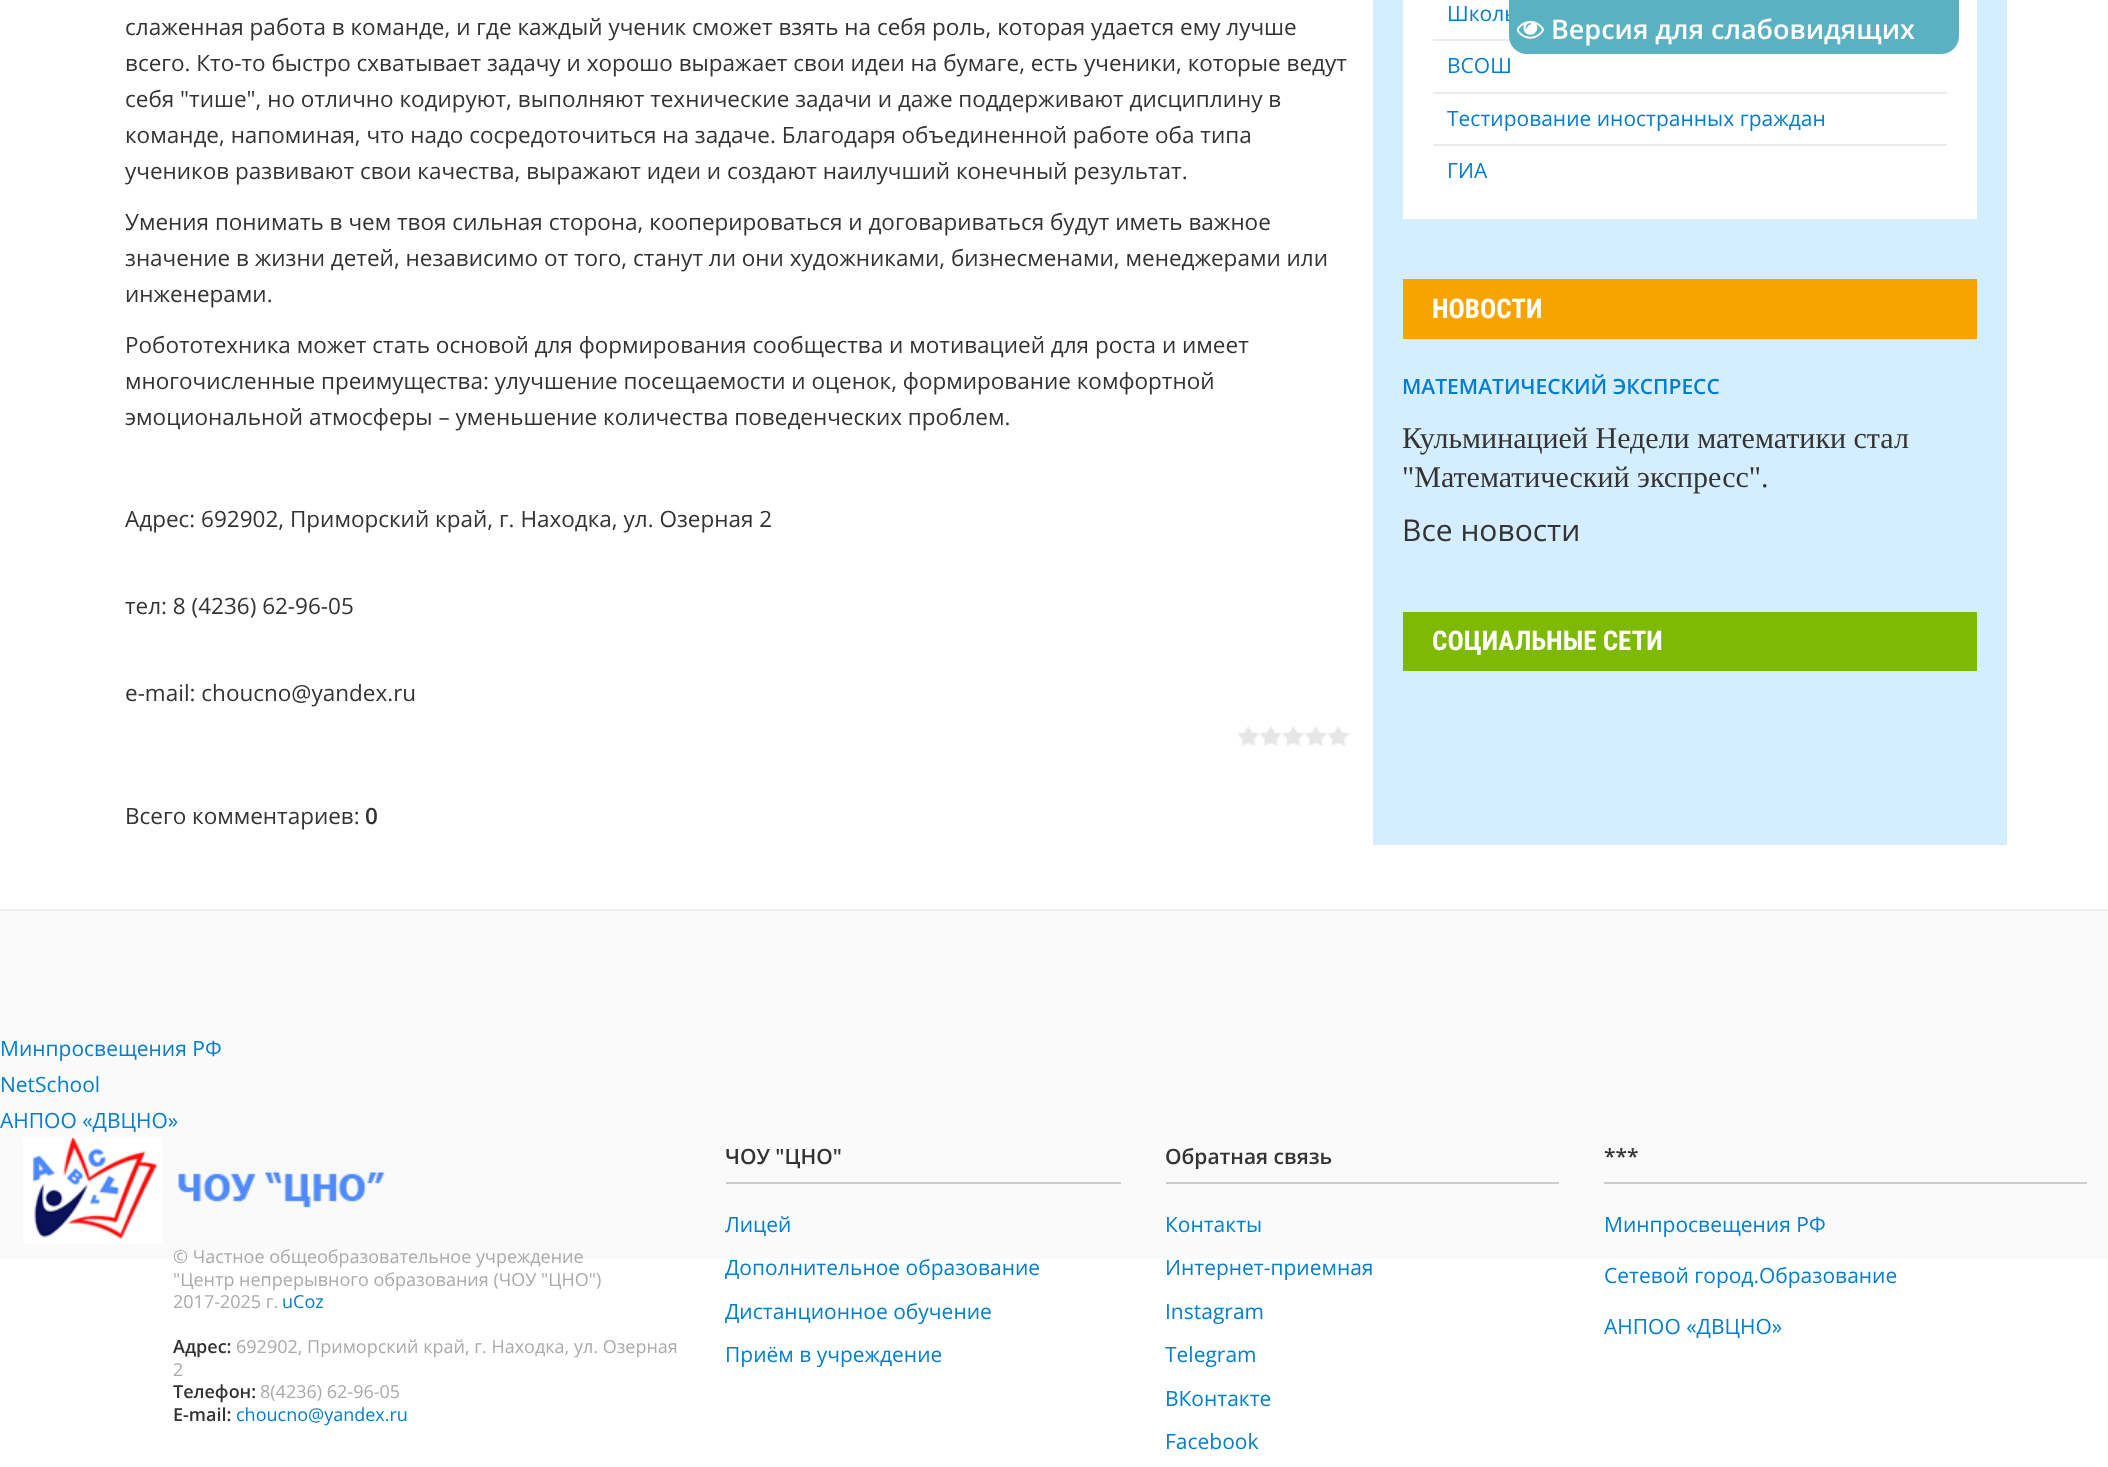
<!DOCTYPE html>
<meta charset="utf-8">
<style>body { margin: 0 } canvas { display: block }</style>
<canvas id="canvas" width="2108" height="1467"></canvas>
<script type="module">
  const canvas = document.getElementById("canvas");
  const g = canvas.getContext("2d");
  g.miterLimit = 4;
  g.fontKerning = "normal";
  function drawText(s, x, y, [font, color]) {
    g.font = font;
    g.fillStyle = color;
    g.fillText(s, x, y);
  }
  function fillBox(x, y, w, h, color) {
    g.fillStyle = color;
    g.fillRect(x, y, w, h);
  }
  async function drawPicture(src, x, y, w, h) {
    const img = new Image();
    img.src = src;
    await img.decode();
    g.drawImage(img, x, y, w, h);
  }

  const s1 = ["22.5px Open Sans", "#333333"];
  const s2 = ["600 22.5px Open Sans", "#333333"];
  const s3 = ["21px Open Sans", "#037ECF"];
  const s4 = ["bold 27px Roboto Condensed", "#FFFFFF"];
  const s5 = ["600 21px Open Sans", "#037ECF"];
  const s6 = ["30px Liberation Serif", "#333333"];
  const s7 = ["30px Open Sans", "#333333"];
  const s8 = ["600 27px Open Sans", "#FFFFFF"];
  const s9 = ["18px Open Sans", "#AAAAAA"];
  const s10 = ["18px Open Sans", "#037ECF"];
  const s11 = ["600 18px Open Sans", "#333333"];
  const s12 = ["600 21px Open Sans", "#333333"];

  fillBox(0, 0, 2108, 1467, "#FFFFFF");
  drawText("слаженная работа в команде, и где каждый ученик сможет взять на себя роль, которая удается ему лучше", 125, 35, s1);
  drawText("всего. Кто-то быстро схватывает задачу и хорошо выражает свои идеи на бумаге, есть ученики, которые ведут", 125, 71, s1);
  drawText("себя \"тише\", но отлично кодируют, выполняют технические задачи и даже поддерживают дисциплину в", 125, 107, s1);
  drawText("команде, напоминая, что надо сосредоточиться на задаче. Благодаря объединенной работе оба типа", 125, 143, s1);
  drawText("учеников развивают свои качества, выражают идеи и создают наилучший конечный результат.", 125, 179, s1);
  drawText("Умения понимать в чем твоя сильная сторона, кооперироваться и договариваться будут иметь важное", 125, 230, s1);
  drawText("значение в жизни детей, независимо от того, станут ли они художниками, бизнесменами, менеджерами или", 125, 266, s1);
  drawText("инженерами.", 125, 302, s1);
  drawText("Робототехника может стать основой для формирования сообщества и мотивацией для роста и имеет", 125, 353, s1);
  drawText("многочисленные преимущества: улучшение посещаемости и оценок, формирование комфортной", 125, 389, s1);
  drawText("эмоциональной атмосферы – уменьшение количества поведенческих проблем.", 125, 425, s1);
  drawText("Адрес: 692902, Приморский край, г. Находка, ул. Озерная 2", 125, 527, s1);
  drawText("тел: 8 (4236) 62-96-05", 125, 614, s1);
  drawText("e-mail: choucno@yandex.ru", 125, 701, s1);
  await drawPicture("pic1.png", 1237, 726, 113, 20);
  drawText("Всего комментариев:", 125, 824, s1);
  drawText("0", 365, 824, s2);
  fillBox(1373, 0, 634, 845, "#D5EEFF");
  fillBox(1403, 0, 574, 219, "#FFFFFF");
  fillBox(1433, 39, 77, 2, "#EBEBEB");
  drawText("Школь", 1447, 21, s3);
  fillBox(1433, 92, 514, 2, "#EBEBEB");
  drawText("ВСОШ", 1447, 73, s3);
  fillBox(1433, 144, 514, 2, "#EBEBEB");
  drawText("Тестирование иностранных граждан", 1447, 126, s3);
  drawText("ГИА", 1447, 178, s3);
  fillBox(1403, 279, 574, 60, "#F7A400");
  drawText("НОВОСТИ", 1432, 318, s4);
  drawText("МАТЕМАТИЧЕСКИЙ ЭКСПРЕСС", 1402, 394, s5);
  drawText("Кульминацией Недели математики стал", 1402, 448, s6);
  drawText("\"Математический экспресс\".", 1402, 487, s6);
  drawText("Все новости", 1402, 541, s7);
  fillBox(1403, 612, 574, 59, "#7EBA03");
  drawText("СОЦИАЛЬНЫЕ СЕТИ", 1432, 650, s4);
  g.fillStyle = "#59B1C2";
  g.beginPath();
  g.roundRect(1509, 0, 450, 54, [0, 0, 18, 18]);
  g.fill();
  await drawPicture("pic2.png", 1517, 20, 27, 19);
  drawText("Версия для слабовидящих", 1551, 39, s8);
  fillBox(0, 911, 2108, 348, "#FAFAFA");
  fillBox(0, 909, 2108, 2, "#EEEEEE");
  drawText("Минпросвещения РФ", 0, 1056, s3);
  drawText("NetSchool", 0, 1092, s3);
  drawText("АНПОО «ДВЦНО»", 0, 1128, s3);
  await drawPicture("pic3.png", 23, 1138, 362, 105);
  drawText("© Частное общеобразовательное учреждение", 173, 1263, s9);
  drawText("\"Центр непрерывного образования (ЧОУ \"ЦНО\")", 173, 1286, s9);
  drawText("2017-2025 г.", 173, 1308, s9);
  drawText("uCoz", 282, 1308, s10);
  drawText("Адрес:", 173, 1353, s11);
  drawText("692902, Приморский край, г. Находка, ул. Озерная", 236, 1353, s9);
  drawText("2", 173, 1376, s9);
  drawText("Телефон:", 173, 1398, s11);
  drawText("8(4236) 62-96-05", 260, 1398, s9);
  drawText("E-mail:", 173, 1421, s11);
  drawText("choucno@yandex.ru", 236, 1421, s10);
  fillBox(726, 1182, 395, 2, "#CCCCCC");
  drawText("ЧОУ \"ЦНО\"", 725, 1164, s12);
  drawText("Лицей", 725, 1232, s3);
  drawText("Дополнительное образование", 725, 1275, s3);
  drawText("Дистанционное обучение", 725, 1319, s3);
  drawText("Приём в учреждение", 725, 1362, s3);
  fillBox(1166, 1182, 393, 2, "#CCCCCC");
  drawText("Обратная связь", 1165, 1164, s12);
  drawText("Контакты", 1165, 1232, s3);
  drawText("Интернет-приемная", 1165, 1275, s3);
  drawText("Instagram", 1165, 1319, s3);
  drawText("Telegram", 1165, 1362, s3);
  drawText("ВКонтакте", 1165, 1406, s3);
  drawText("Facebook", 1165, 1449, s3);
  fillBox(1604, 1182, 483, 2, "#CCCCCC");
  drawText("***", 1604, 1164, s12);
  drawText("Минпросвещения РФ", 1604, 1232, s3);
  drawText("Сетевой город.Образование", 1604, 1283, s3);
  drawText("АНПОО «ДВЦНО»", 1604, 1334, s3);
</script>
